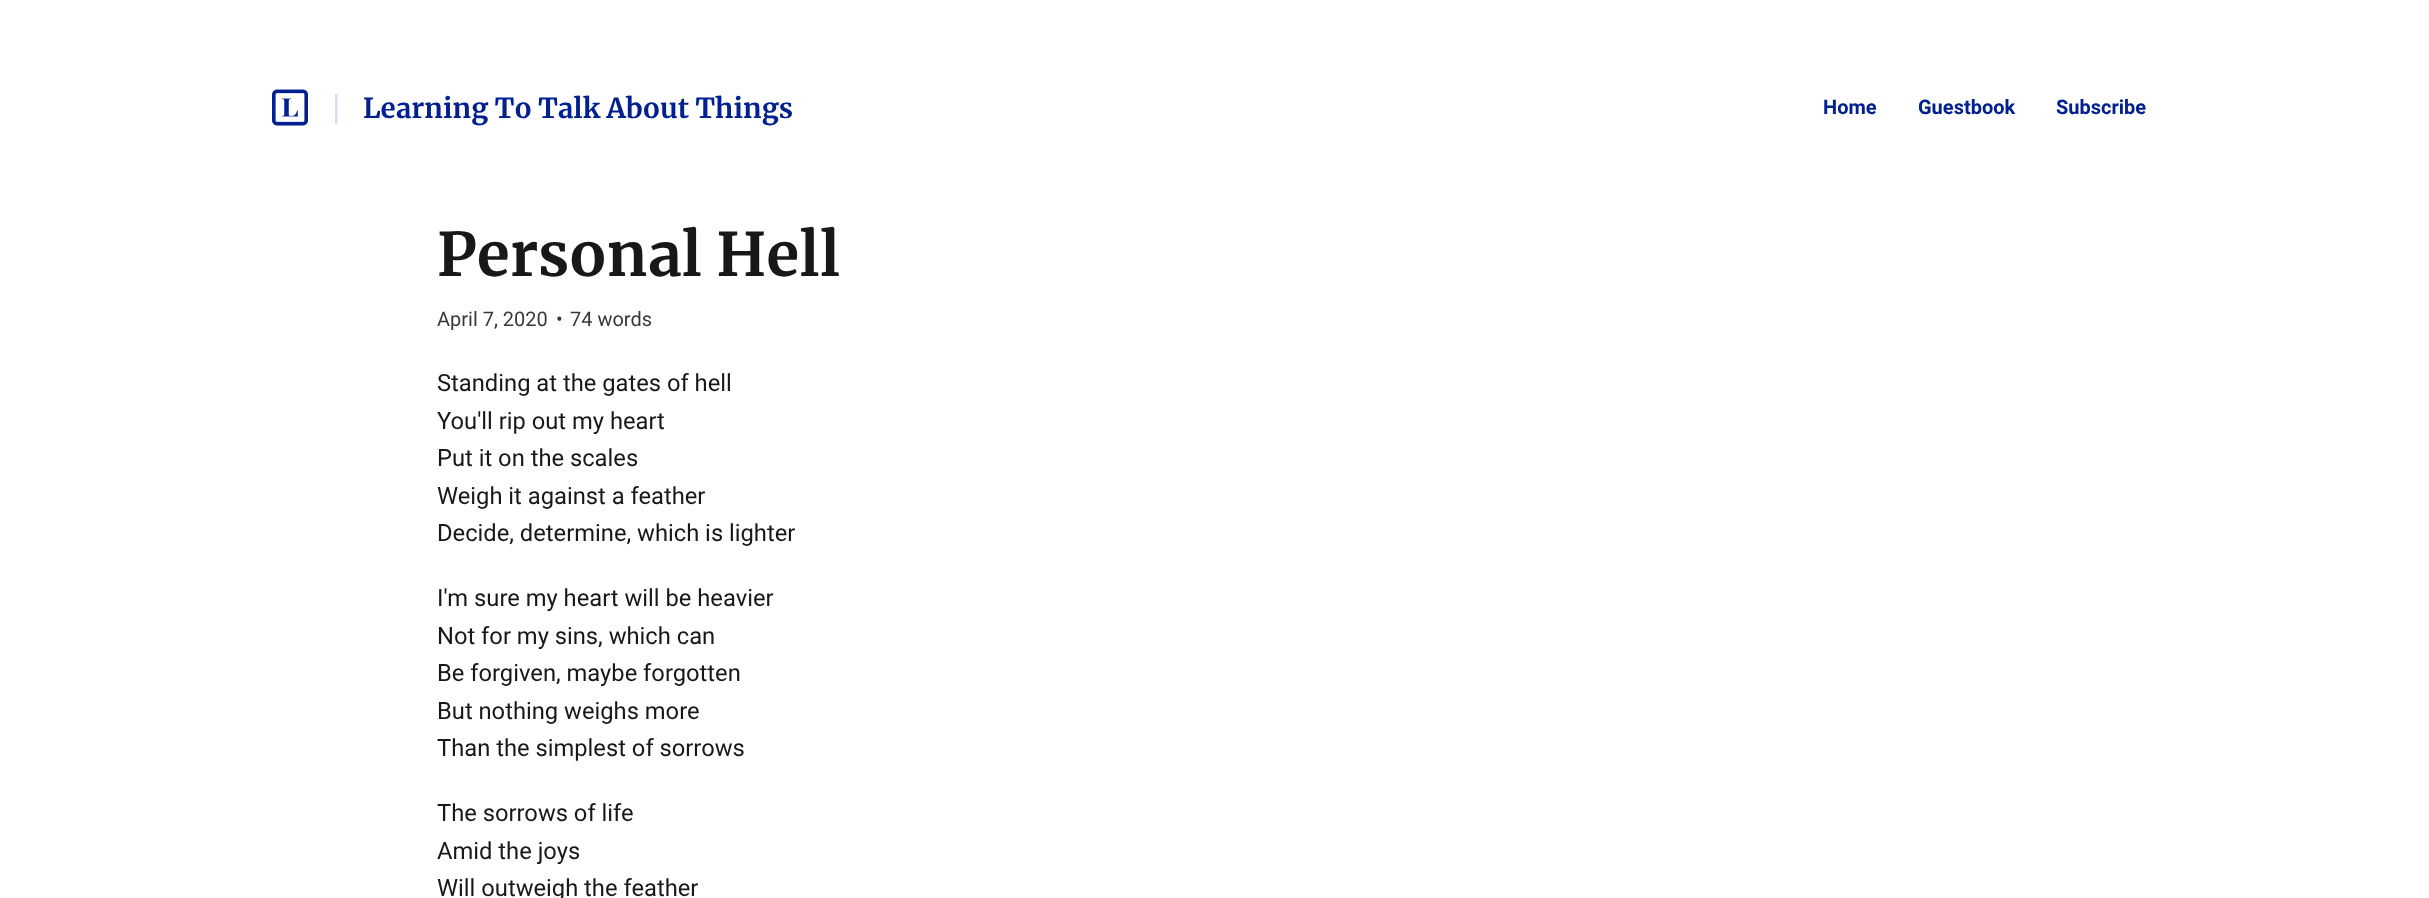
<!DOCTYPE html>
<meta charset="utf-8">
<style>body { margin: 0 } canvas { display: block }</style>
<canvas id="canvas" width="2429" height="898"></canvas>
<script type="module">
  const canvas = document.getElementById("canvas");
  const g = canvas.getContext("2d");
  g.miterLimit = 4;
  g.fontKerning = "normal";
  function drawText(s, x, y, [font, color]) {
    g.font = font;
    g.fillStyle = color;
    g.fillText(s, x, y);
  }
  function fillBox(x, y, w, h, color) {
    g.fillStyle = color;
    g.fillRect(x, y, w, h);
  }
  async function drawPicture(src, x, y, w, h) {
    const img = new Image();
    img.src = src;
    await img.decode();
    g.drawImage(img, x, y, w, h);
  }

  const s1 = ["35px Roboto", "#D6DBED"];
  const s2 = ["bold 27.5px Merriweather", "#00208F"];
  const s3 = ["bold 20px Roboto", "#00208F"];
  const s4 = ["bold 60px Merriweather", "#181818"];
  const s5 = ["20px Roboto", "#383838"];
  const s6 = ["23.75px Roboto", "#181818"];

  fillBox(0, 0, 2429, 898, "#FFFFFF");
  await drawPicture("pic1.png", 272, 89, 36, 37);
  drawText("|", 332, 119, s1);
  drawText("Learning To Talk About Things", 363, 118, s2);
  drawText("Home", 1823, 114, s3);
  drawText("Guestbook", 1918, 114, s3);
  drawText("Subscribe", 2056, 114, s3);
  drawText("Personal Hell", 437, 276, s4);
  drawText("April 7, 2020", 437, 326, s5);
  drawText("•", 556, 326, s5);
  drawText("74 words", 570, 326, s5);
  drawText("Standing at the gates of hell", 437, 391, s6);
  drawText("You'll rip out my heart", 437, 429, s6);
  drawText("Put it on the scales", 437, 466, s6);
  drawText("Weigh it against a feather", 437, 504, s6);
  drawText("Decide, determine, which is lighter", 437, 541, s6);
  drawText("I'm sure my heart will be heavier", 437, 606, s6);
  drawText("Not for my sins, which can", 437, 644, s6);
  drawText("Be forgiven, maybe forgotten", 437, 681, s6);
  drawText("But nothing weighs more", 437, 719, s6);
  drawText("Than the simplest of sorrows", 437, 756, s6);
  drawText("The sorrows of life", 437, 821, s6);
  drawText("Amid the joys", 437, 859, s6);
  drawText("Will outweigh the feather", 437, 896, s6);
</script>
